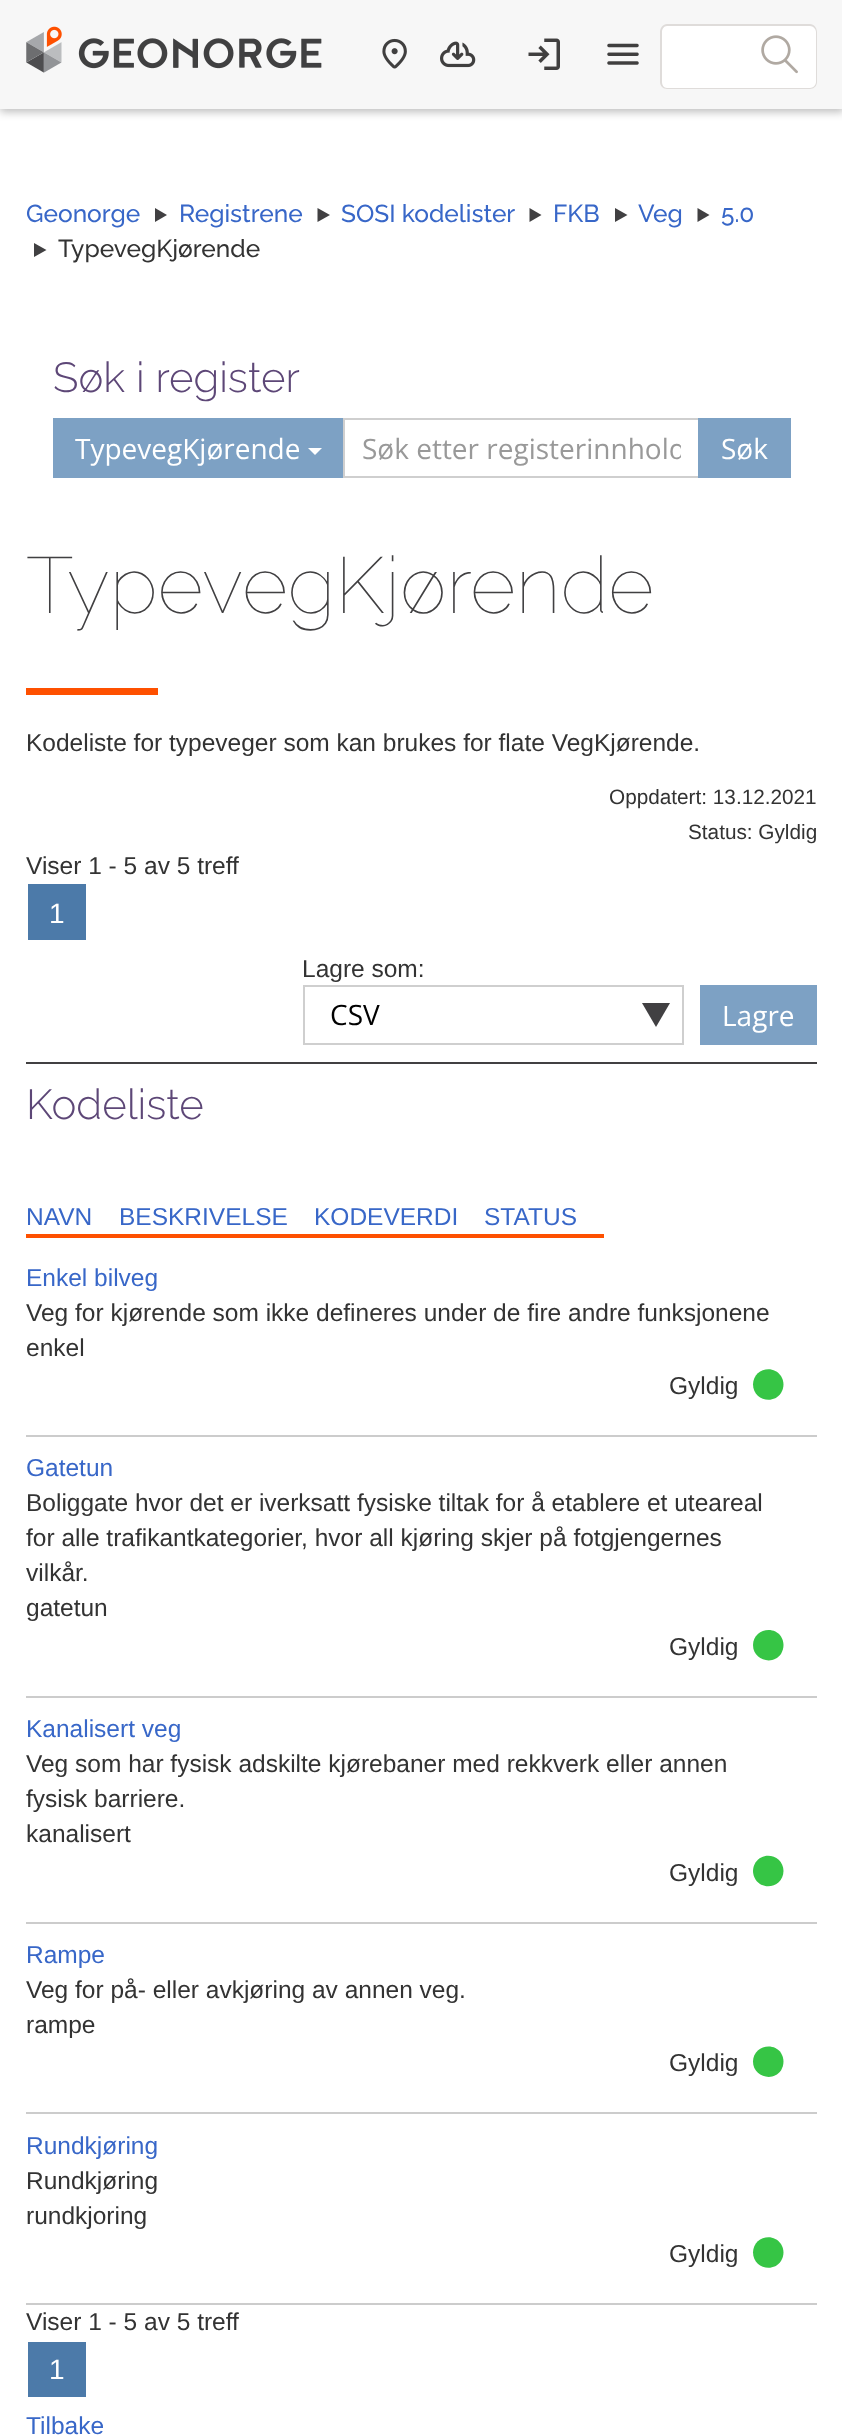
<!DOCTYPE html>
<meta charset="utf-8">
<style>body { margin: 0 } canvas { display: block }</style>
<canvas id="canvas" width="842" height="2436"></canvas>
<script type="module">
  const canvas = document.getElementById("canvas");
  const g = canvas.getContext("2d");
  g.miterLimit = 4;
  g.fontKerning = "normal";
  function drawText(s, x, y, [font, color]) {
    g.font = font;
    g.fillStyle = color;
    g.fillText(s, x, y);
  }
  function fillBox(x, y, w, h, color) {
    g.fillStyle = color;
    g.fillRect(x, y, w, h);
  }
  async function drawPicture(src, x, y, w, h) {
    const img = new Image();
    img.src = src;
    await img.decode();
    g.drawImage(img, x, y, w, h);
  }

  const s1 = ["500 24.5px Raleway", "#3867C8"];
  const s2 = ["500 24.5px Raleway", "#333333"];
  const s3 = ["300 42px Raleway", "#5D4777"];
  const s4 = ["28px Open Sans", "#FFFFFF"];
  const s5 = ["28px Open Sans", "#999999"];
  const s6 = ["100 79.25px Raleway", "#414042"];
  const s7 = ["24.5px Liberation Sans", "#333333"];
  const s8 = ["20.75px Liberation Sans", "#333333"];
  const s9 = ["28px Liberation Sans", "#FFFFFF"];
  const s10 = ["28px Open Sans", "#000000"];
  const s11 = ["24.5px Liberation Sans", "#3867C8"];

  fillBox(0, 0, 842, 2436, "#FFFFFF");
  g.fillStyle = "rgba(0, 0, 0, 0.26)";
  g.filter = "blur(4.5px)";
  g.beginPath();
  g.rect(0, 4, 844, 108);
  g.fill();
  g.filter = "none";
  fillBox(0, 0, 842, 109, "#F7F7F7");
  await drawPicture("pic1.png", 26, 26, 296, 47);
  await drawPicture("pic2.png", 382, 38, 25, 31);
  await drawPicture("pic3.png", 440, 41, 36, 27);
  await drawPicture("pic4.png", 528, 38, 32, 32);
  await drawPicture("pic5.png", 607, 43, 32, 22);
  g.fillStyle = "#FFFFFF";
  g.beginPath();
  g.roundRect(660, 25, 84, 64, [7, 0, 0, 7]);
  g.fill();
  g.fillStyle = "#DFDCDA";
  g.beginPath();
  g.moveTo(667, 24);
  g.lineTo(744, 24);
  g.lineTo(744, 89);
  g.lineTo(667, 89);
  g.bezierCurveTo(663, 89, 660, 86, 660, 82);
  g.lineTo(660, 32);
  g.bezierCurveTo(660, 28, 663, 24, 667, 24);
  g.closePath();
  g.moveTo(667, 26);
  g.lineTo(744, 26);
  g.lineTo(744, 88);
  g.lineTo(667, 88);
  g.bezierCurveTo(664, 88, 662, 85, 662, 82);
  g.lineTo(662, 32);
  g.bezierCurveTo(662, 29, 664, 26, 667, 26);
  g.closePath();
  g.fill("evenodd");
  g.fillStyle = "#FFFFFF";
  g.beginPath();
  g.roundRect(744, 25, 73, 64, [0, 7, 7, 0]);
  g.fill();
  g.fillStyle = "#DFDCDA";
  g.beginPath();
  g.moveTo(744, 24);
  g.lineTo(810, 24);
  g.bezierCurveTo(814, 24, 817, 28, 817, 32);
  g.lineTo(817, 82);
  g.bezierCurveTo(817, 86, 814, 89, 810, 89);
  g.lineTo(744, 89);
  g.closePath();
  g.moveTo(744, 26);
  g.lineTo(810, 26);
  g.bezierCurveTo(813, 26, 816, 29, 816, 32);
  g.lineTo(816, 82);
  g.bezierCurveTo(816, 85, 813, 88, 810, 88);
  g.lineTo(744, 88);
  g.closePath();
  g.fill("evenodd");
  await drawPicture("pic6.png", 761, 35, 37, 39);
  drawText("Geonorge", 26, 222, s1);
  g.fillStyle = "#414042";
  g.beginPath();
  g.moveTo(167, 215);
  g.lineTo(155, 222);
  g.lineTo(155, 208);
  g.closePath();
  g.fill();
  drawText("Registrene", 179, 222, s1);
  g.fillStyle = "#414042";
  g.beginPath();
  g.moveTo(330, 215);
  g.lineTo(317.5, 222);
  g.lineTo(317.5, 208);
  g.closePath();
  g.fill();
  drawText("SOSI kodelister", 341, 222, s1);
  g.fillStyle = "#414042";
  g.beginPath();
  g.moveTo(541.5, 215);
  g.lineTo(529.5, 222);
  g.lineTo(529.5, 208);
  g.closePath();
  g.fill();
  drawText("FKB", 553, 222, s1);
  g.fillStyle = "#414042";
  g.beginPath();
  g.moveTo(627.5, 215);
  g.lineTo(615, 222);
  g.lineTo(615, 208);
  g.closePath();
  g.fill();
  drawText("Veg", 638, 222, s1);
  g.fillStyle = "#414042";
  g.beginPath();
  g.moveTo(709.5, 215);
  g.lineTo(697.5, 222);
  g.lineTo(697.5, 208);
  g.closePath();
  g.fill();
  drawText("5.0", 721, 222, s1);
  g.fillStyle = "#414042";
  g.beginPath();
  g.moveTo(46.5, 250);
  g.lineTo(34, 257);
  g.lineTo(34, 243);
  g.closePath();
  g.fill();
  drawText("TypevegKjørende", 58, 257, s2);
  drawText("Søk i register", 53, 392, s3);
  fillBox(53, 418, 290, 60, "#7DA1C4");
  drawText("TypevegKjørende", 75, 459, s4);
  g.beginPath();
  g.moveTo(308, 448);
  g.lineTo(322, 448);
  g.lineTo(315, 455);
  g.closePath();
  g.fill();
  g.strokeStyle = "#CFCFCF";
  g.lineWidth = 2;
  g.strokeRect(344, 419, 355, 58);
  g.save();
  g.beginPath();
  g.rect(362, 429, 319, 38);
  g.clip();
  drawText("Søk etter registerinnhold", 362, 459, s5);
  g.restore();
  fillBox(698, 418, 93, 60, "#7DA1C4");
  drawText("Søk", 721, 459, s4);
  drawText("TypevegKjørende", 26, 613, s6);
  fillBox(26, 688, 132, 7, "#FE5000");
  drawText("Kodeliste for typeveger som kan brukes for flate VegKjørende.", 26, 751, s7);
  drawText("Oppdatert: 13.12.2021", 609, 804, s8);
  drawText("Status: Gyldig", 688, 839, s8);
  drawText("Viser 1 - 5 av 5 treff", 26, 874, s7);
  fillBox(28, 884, 58, 56, "#4C7AA9");
  drawText("1", 49, 923, s9);
  drawText("Lagre som:", 302, 977, s7);
  g.fillStyle = "#414042";
  g.beginPath();
  g.moveTo(642, 1003);
  g.lineTo(656, 1027);
  g.lineTo(670, 1003);
  g.closePath();
  g.fill();
  g.strokeRect(304, 986, 379, 58);
  drawText("CSV", 330, 1025, s10);
  fillBox(700, 985, 117, 60, "#7DA1C4");
  drawText("Lagre", 722, 1026, s4);
  fillBox(26, 1062, 791, 2, "#414042");
  drawText("Kodeliste", 26, 1119, s3);
  fillBox(26, 1234, 578, 4, "#FE5000");
  drawText("NAVN", 26, 1225, s11);
  drawText("BESKRIVELSE", 119, 1225, s11);
  drawText("KODEVERDI", 314, 1225, s11);
  drawText("STATUS", 484, 1225, s11);
  fillBox(26, 1435, 791, 2, "#CCCCCC");
  drawText("Enkel bilveg", 26, 1286, s11);
  drawText("Veg for kjørende som ikke defineres under de fire andre funksjonene", 26, 1321, s7);
  drawText("enkel", 26, 1356, s7);
  drawText("Gyldig", 669, 1394, s7);
  g.fillStyle = "#36C545";
  g.beginPath();
  g.moveTo(783.5, 1384.5);
  g.bezierCurveTo(783.5, 1387.5, 782.5, 1390.5, 781, 1393);
  g.bezierCurveTo(772.5, 1405.5, 753, 1399.5, 753, 1384.5);
  g.bezierCurveTo(753, 1369.5, 772.5, 1363.5, 781, 1376);
  g.bezierCurveTo(782.5, 1378.5, 783.5, 1381.5, 783.5, 1384.5);
  g.closePath();
  g.fill();
  fillBox(26, 1696, 791, 2, "#CCCCCC");
  drawText("Gatetun", 26, 1476, s11);
  drawText("Boliggate hvor det er iverksatt fysiske tiltak for å etablere et uteareal", 26, 1511, s7);
  drawText("for alle trafikantkategorier, hvor all kjøring skjer på fotgjengernes", 26, 1546, s7);
  drawText("vilkår.", 26, 1581, s7);
  drawText("gatetun", 26, 1616, s7);
  drawText("Gyldig", 669, 1655, s7);
  g.fillStyle = "#36C545";
  g.beginPath();
  g.moveTo(783.5, 1645);
  g.bezierCurveTo(783.5, 1648.5, 782.5, 1651, 781, 1654);
  g.bezierCurveTo(772.5, 1666, 753, 1660, 753, 1645);
  g.bezierCurveTo(753, 1630.5, 772.5, 1624.5, 781, 1636.5);
  g.bezierCurveTo(782.5, 1639, 783.5, 1642, 783.5, 1645);
  g.closePath();
  g.fill();
  fillBox(26, 1922, 791, 2, "#CCCCCC");
  drawText("Kanalisert veg", 26, 1737, s11);
  drawText("Veg som har fysisk adskilte kjørebaner med rekkverk eller annen", 26, 1772, s7);
  drawText("fysisk barriere.", 26, 1807, s7);
  drawText("kanalisert", 26, 1842, s7);
  drawText("Gyldig", 669, 1881, s7);
  g.fillStyle = "#36C545";
  g.beginPath();
  g.moveTo(783.5, 1871);
  g.bezierCurveTo(783.5, 1886, 764, 1892, 755.5, 1879.5);
  g.bezierCurveTo(754, 1877, 753, 1874, 753, 1871);
  g.bezierCurveTo(753, 1868, 754, 1865, 755.5, 1862.5);
  g.bezierCurveTo(764, 1850, 783.5, 1856, 783.5, 1871);
  g.closePath();
  g.fill();
  fillBox(26, 2112, 791, 2, "#CCCCCC");
  drawText("Rampe", 26, 1963, s11);
  drawText("Veg for på- eller avkjøring av annen veg.", 26, 1998, s7);
  drawText("rampe", 26, 2033, s7);
  drawText("Gyldig", 669, 2071, s7);
  g.fillStyle = "#36C545";
  g.beginPath();
  g.moveTo(783.5, 2061.5);
  g.bezierCurveTo(783.5, 2065, 782.5, 2067.5, 781, 2070.5);
  g.bezierCurveTo(772.5, 2082.5, 753, 2076.5, 753, 2061.5);
  g.bezierCurveTo(753, 2047, 772.5, 2041, 781, 2053);
  g.bezierCurveTo(782.5, 2055.5, 783.5, 2058.5, 783.5, 2061.5);
  g.closePath();
  g.fill();
  fillBox(26, 2303, 791, 2, "#CCCCCC");
  drawText("Rundkjøring", 26, 2154, s11);
  drawText("Rundkjøring", 26, 2189, s7);
  drawText("rundkjoring", 26, 2224, s7);
  drawText("Gyldig", 669, 2262, s7);
  g.fillStyle = "#36C545";
  g.beginPath();
  g.moveTo(783.5, 2252.5);
  g.bezierCurveTo(783.5, 2255.5, 782.5, 2258.5, 781, 2261);
  g.bezierCurveTo(772.5, 2273.5, 753, 2267.5, 753, 2252.5);
  g.bezierCurveTo(753, 2237.5, 772.5, 2231.5, 781, 2244);
  g.bezierCurveTo(782.5, 2246.5, 783.5, 2249.5, 783.5, 2252.5);
  g.closePath();
  g.fill();
  drawText("Viser 1 - 5 av 5 treff", 26, 2330, s7);
  fillBox(28, 2342, 58, 55, "#4C7AA9");
  drawText("1", 49, 2379, s9);
  drawText("Tilbake", 26, 2434, s11);
</script>
